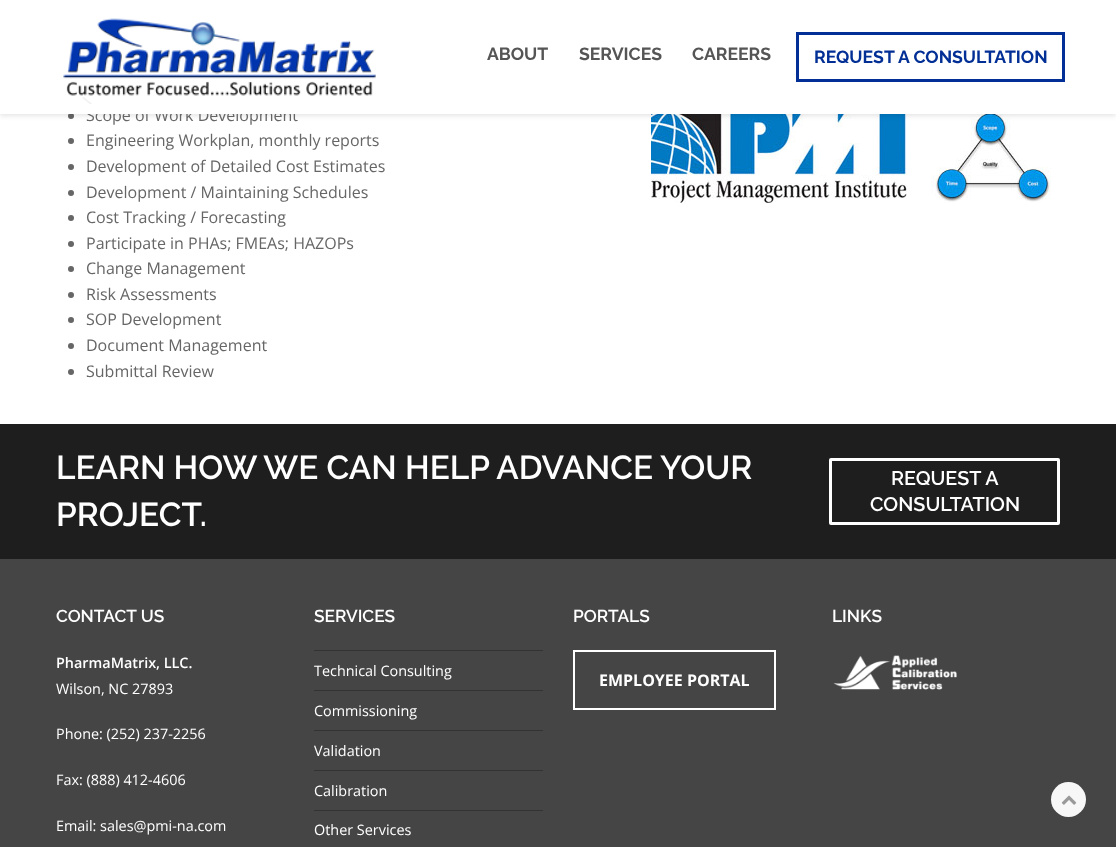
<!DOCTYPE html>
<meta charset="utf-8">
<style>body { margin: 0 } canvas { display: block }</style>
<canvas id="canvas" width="1116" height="847"></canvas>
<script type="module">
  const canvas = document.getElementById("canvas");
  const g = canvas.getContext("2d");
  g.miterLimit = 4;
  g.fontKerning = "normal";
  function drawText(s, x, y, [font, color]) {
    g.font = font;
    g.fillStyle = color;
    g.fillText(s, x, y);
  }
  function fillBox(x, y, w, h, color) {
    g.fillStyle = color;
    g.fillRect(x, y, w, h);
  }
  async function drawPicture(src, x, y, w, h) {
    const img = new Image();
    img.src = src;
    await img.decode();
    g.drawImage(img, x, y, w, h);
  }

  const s1 = ["16px Open Sans", "#666666"];
  const s2 = ["bold 17.6px Raleway", "#555555"];
  const s3 = ["bold 17.6px Raleway", "#022F95"];
  const s4 = ["600 33.25px Raleway", "#FFFFFF"];
  const s5 = ["600 19.75px Raleway", "#FFFFFF"];
  const s6 = ["600 17.25px Raleway", "#FFFFFF"];
  const s7 = ["600 14.4px Open Sans", "#FFFFFF"];
  const s8 = ["14.4px Open Sans", "#FFFFFF"];
  const s9 = ["bold 16px Open Sans", "#FFFFFF"];

  fillBox(0, 0, 1116, 847, "#FFFFFF");
  g.fillStyle = "#666666";
  g.beginPath();
  g.arc(71, 116, 3, 0, Math.PI * 2);
  g.fill();
  await drawPicture("pic2.png", 651, 114, 400, 89);
  g.fillStyle = "rgba(0, 0, 0, 0.1)";
  g.filter = "blur(2.5px)";
  g.beginPath();
  g.rect(0, 2, 1116, 114);
  g.fill();
  g.filter = "none";
  drawText("Scope of Work Development", 86, 121, s1);
  fillBox(0, 0, 1116, 114, "#FFFFFF");
  await drawPicture("pic1.png", 63, 18, 313, 86);
  drawText("ABOUT", 487, 60, s2);
  drawText("SERVICES", 579, 60, s2);
  drawText("CAREERS", 692, 60, s2);
  g.strokeStyle = "#022F95";
  g.lineWidth = 3;
  g.strokeRect(797.5, 33.5, 266, 47);
  drawText("REQUEST A CONSULTATION", 814, 63, s3);
  g.fillStyle = "#666666";
  g.beginPath();
  g.arc(71, 141, 3, 0, Math.PI * 2);
  g.fill();
  drawText("Engineering Workplan, monthly reports", 86, 146, s1);
  g.beginPath();
  g.arc(71, 167, 3, 0, Math.PI * 2);
  g.fill();
  drawText("Development of Detailed Cost Estimates", 86, 172, s1);
  g.beginPath();
  g.arc(71, 193, 3, 0, Math.PI * 2);
  g.fill();
  drawText("Development / Maintaining Schedules", 86, 198, s1);
  g.beginPath();
  g.arc(71, 218, 3, 0, Math.PI * 2);
  g.fill();
  drawText("Cost Tracking / Forecasting", 86, 223, s1);
  g.beginPath();
  g.arc(71, 244, 3, 0, Math.PI * 2);
  g.fill();
  drawText("Participate in PHAs; FMEAs; HAZOPs", 86, 249, s1);
  g.beginPath();
  g.arc(71, 269, 3, 0, Math.PI * 2);
  g.fill();
  drawText("Change Management", 86, 274, s1);
  g.beginPath();
  g.arc(71, 295, 3, 0, Math.PI * 2);
  g.fill();
  drawText("Risk Assessments", 86, 300, s1);
  g.beginPath();
  g.arc(71, 320, 3, 0, Math.PI * 2);
  g.fill();
  drawText("SOP Development", 86, 325, s1);
  g.beginPath();
  g.arc(71, 346, 3, 0, Math.PI * 2);
  g.fill();
  drawText("Document Management", 86, 351, s1);
  g.beginPath();
  g.arc(71, 372, 3, 0, Math.PI * 2);
  g.fill();
  drawText("Submittal Review", 86, 377, s1);
  fillBox(0, 424, 1116, 135, "#1E1E1E");
  drawText("LEARN HOW WE CAN HELP ADVANCE YOUR", 56, 479, s4);
  drawText("PROJECT.", 56, 526, s4);
  g.beginPath();
  g.roundRect(830.5, 459.5, 228, 64, 0.5);
  g.strokeStyle = "#FFFFFF";
  g.stroke();
  drawText("REQUEST A", 891, 485, s5);
  drawText("CONSULTATION", 870, 511, s5);
  fillBox(0, 559, 1116, 288, "#454545");
  drawText("CONTACT US", 56, 622, s6);
  drawText("PharmaMatrix, LLC.", 56, 668, s7);
  drawText("Wilson, NC 27893", 56, 694, s8);
  drawText("Phone: (252) 237-2256", 56, 739, s8);
  drawText("Fax: (888) 412-4606", 56, 785, s8);
  drawText("Email: sales@pmi-na.com", 56, 831, s8);
  drawText("SERVICES", 314, 622, s6);
  fillBox(314, 650, 229, 1, "#333333");
  fillBox(314, 690, 229, 1, "#333333");
  drawText("Technical Consulting", 314, 676, s8);
  fillBox(314, 730, 229, 1, "#333333");
  drawText("Commissioning", 314, 716, s8);
  fillBox(314, 770, 229, 1, "#333333");
  drawText("Validation", 314, 756, s8);
  fillBox(314, 810, 229, 1, "#333333");
  drawText("Calibration", 314, 796, s8);
  drawText("Other Services", 314, 835, s8);
  drawText("PORTALS", 573, 622, s6);
  g.lineWidth = 2;
  g.strokeRect(574, 651, 201, 58);
  drawText("EMPLOYEE PORTAL", 599, 686, s9);
  drawText("LINKS", 832, 622, s6);
  await drawPicture("pic3.png", 833, 655, 124, 35);
  g.fillStyle = "#F7F7F7";
  g.beginPath();
  g.arc(1068.5, 799.5, 17.5, 0, Math.PI * 2);
  g.fill();
  await drawPicture("pic4.png", 1061, 795, 16, 10);
</script>
